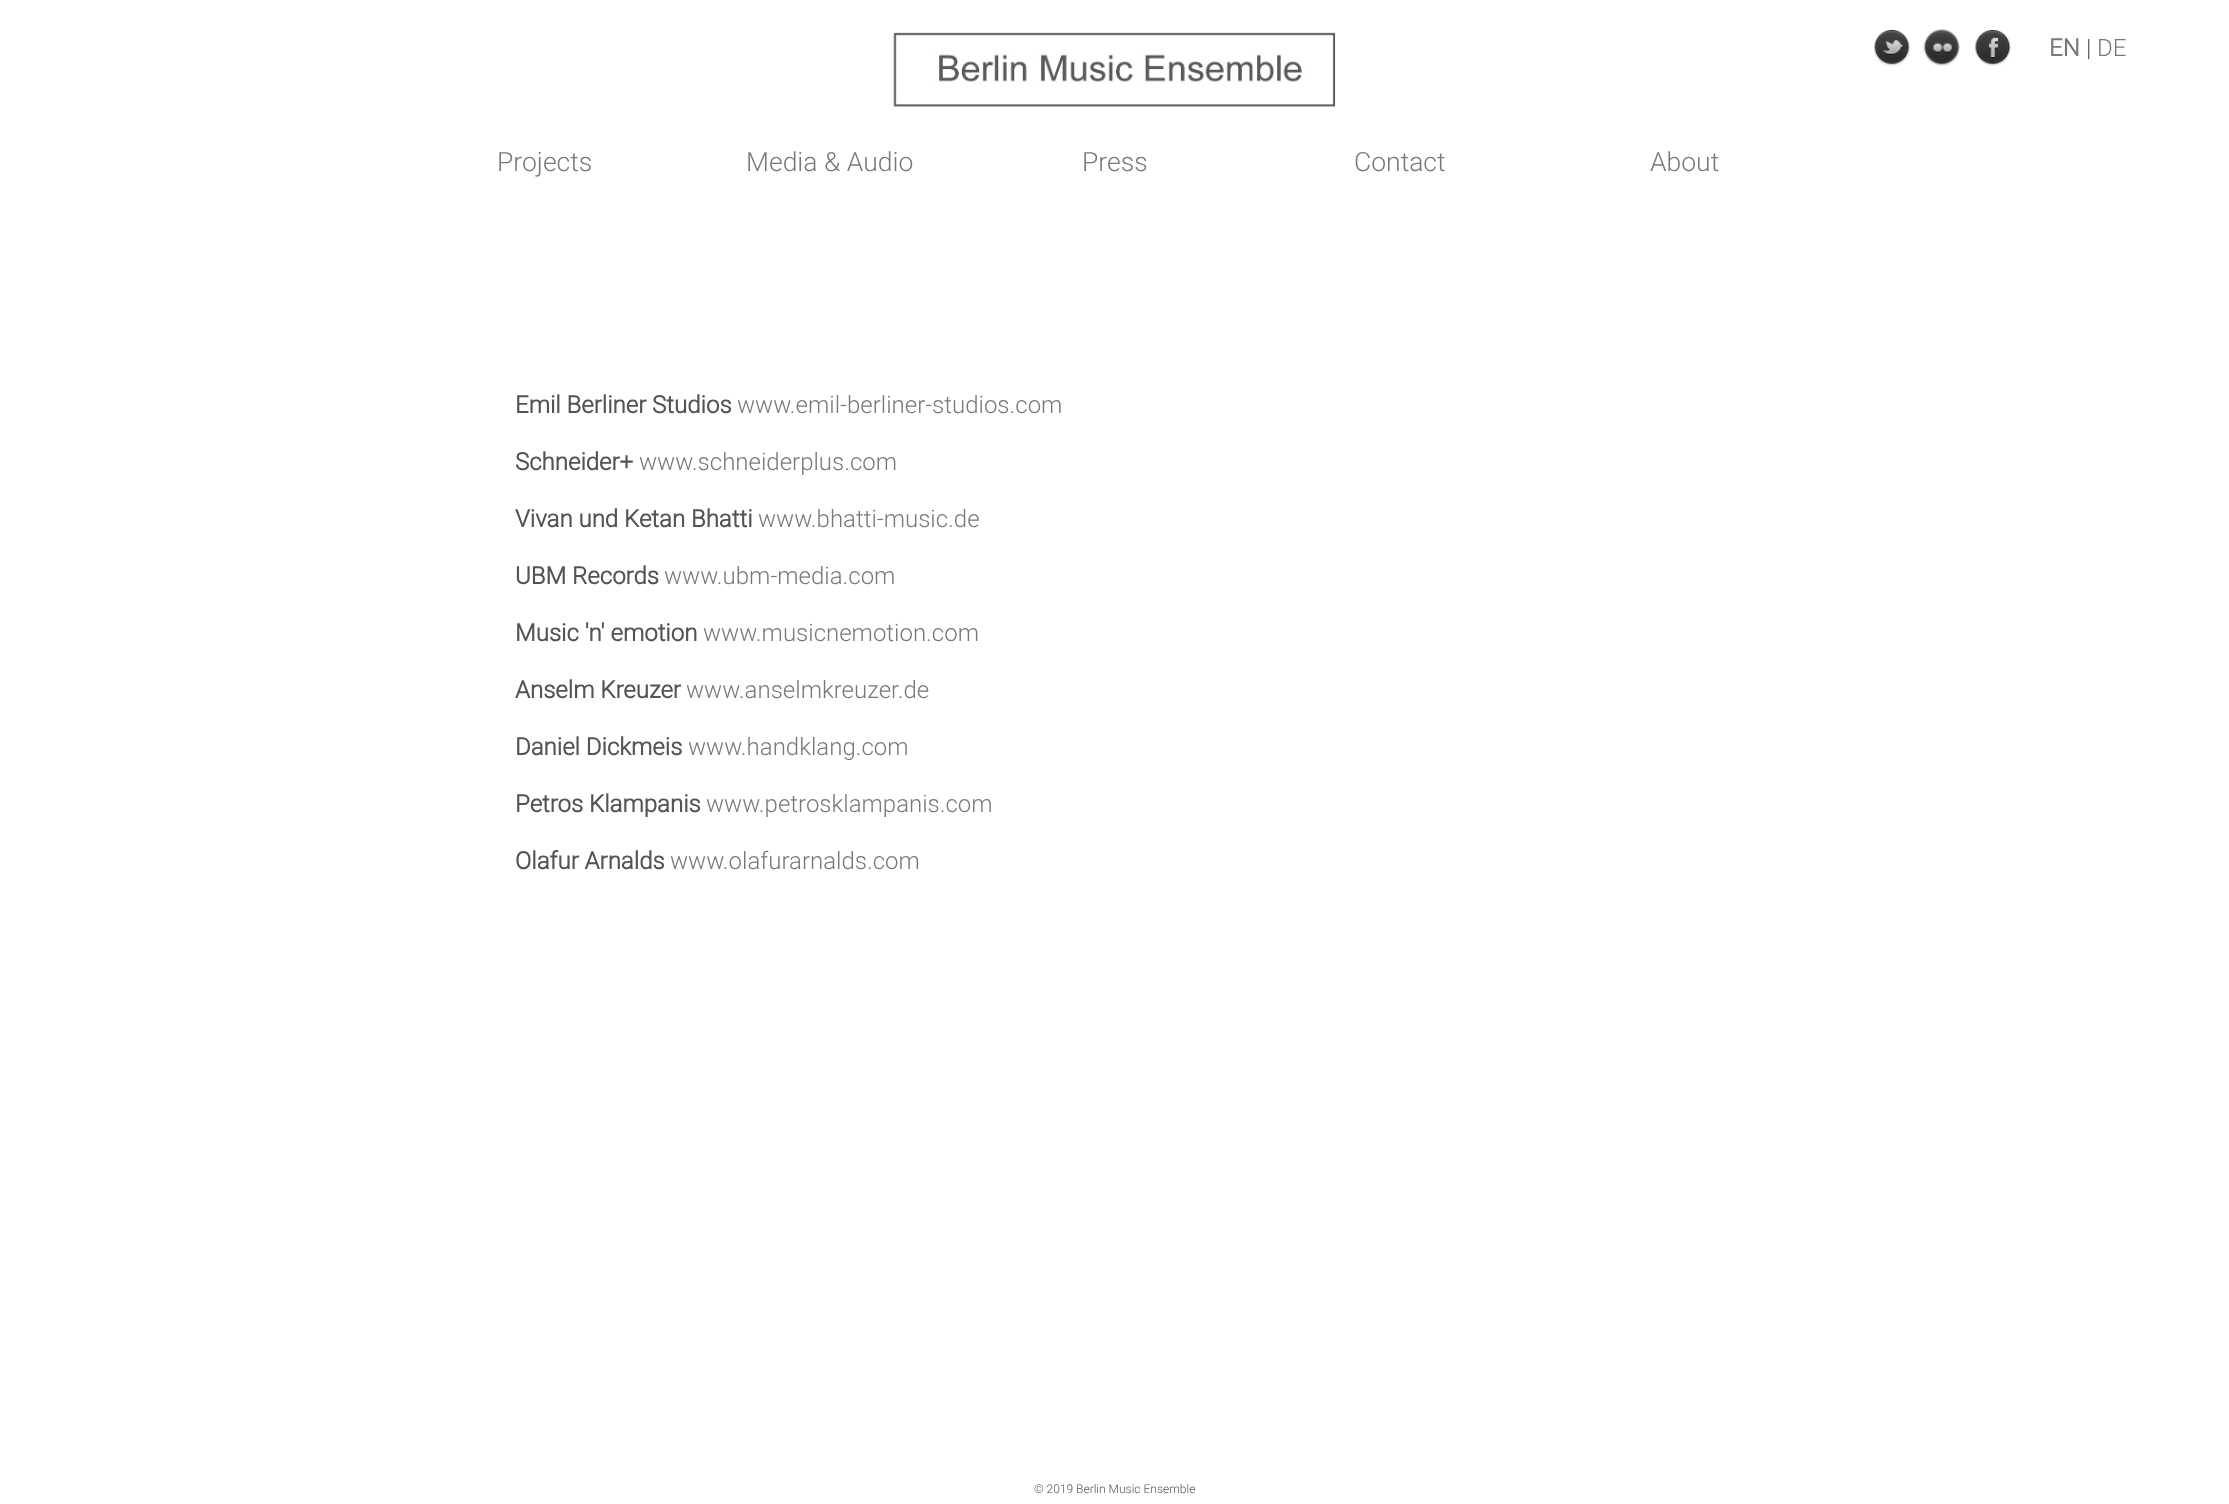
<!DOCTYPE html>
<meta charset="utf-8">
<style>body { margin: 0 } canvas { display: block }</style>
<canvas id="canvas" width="2229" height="1504"></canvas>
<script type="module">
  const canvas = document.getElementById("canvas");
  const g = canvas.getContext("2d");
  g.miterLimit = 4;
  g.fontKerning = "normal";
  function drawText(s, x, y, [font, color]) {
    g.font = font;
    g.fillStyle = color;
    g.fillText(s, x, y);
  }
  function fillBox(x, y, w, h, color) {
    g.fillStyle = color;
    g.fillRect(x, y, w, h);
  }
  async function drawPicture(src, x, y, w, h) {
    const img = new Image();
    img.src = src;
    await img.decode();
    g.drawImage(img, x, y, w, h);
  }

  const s1 = ["bold 24px Roboto", "#797979"];
  const s2 = ["300 24px Roboto", "#545454"];
  const s3 = ["300 24px Roboto", "#797979"];
  const s4 = ["300 26.5px Roboto", "#797979"];
  const s5 = ["bold 24px Roboto", "#545454"];
  const s6 = ["300 12px Roboto", "#545454"];

  fillBox(0, 0, 2229, 1504, "#FFFFFF");
  await drawPicture("pic1.png", 893, 32, 443, 76);
  await drawPicture("pic2.png", 1874, 30, 36, 36);
  await drawPicture("pic3.png", 1923, 29, 37, 37);
  await drawPicture("pic4.png", 1975, 30, 36, 36);
  drawText("EN", 2049, 56, s1);
  drawText("|", 2086, 56, s2);
  drawText("DE", 2097, 56, s3);
  drawText("Projects", 497, 171, s4);
  drawText("Media & Audio", 746, 171, s4);
  drawText("Press", 1082, 171, s4);
  drawText("Contact", 1354, 171, s4);
  drawText("About", 1650, 171, s4);
  drawText("Emil Berliner Studios", 515, 413, s5);
  drawText("www.emil-berliner-studios.com", 737, 413, s3);
  drawText("Schneider+", 515, 470, s5);
  drawText("www.schneiderplus.com", 639, 470, s3);
  drawText("Vivan und Ketan Bhatti", 515, 527, s5);
  drawText("www.bhatti-music.de", 758, 527, s3);
  drawText("UBM Records", 515, 584, s5);
  drawText("www.ubm-media.com", 664, 584, s3);
  drawText("Music 'n' emotion", 515, 641, s5);
  drawText("www.musicnemotion.com", 703, 641, s3);
  drawText("Anselm Kreuzer", 515, 698, s5);
  drawText("www.anselmkreuzer.de", 686, 698, s3);
  drawText("Daniel Dickmeis", 515, 755, s5);
  drawText("www.handklang.com", 688, 755, s3);
  drawText("Petros Klampanis", 515, 812, s5);
  drawText("www.petrosklampanis.com", 706, 812, s3);
  drawText("Olafur Arnalds", 515, 869, s5);
  drawText("www.olafurarnalds.com", 670, 869, s3);
  drawText("© 2019 Berlin Music Ensemble", 1034, 1493, s6);
</script>
